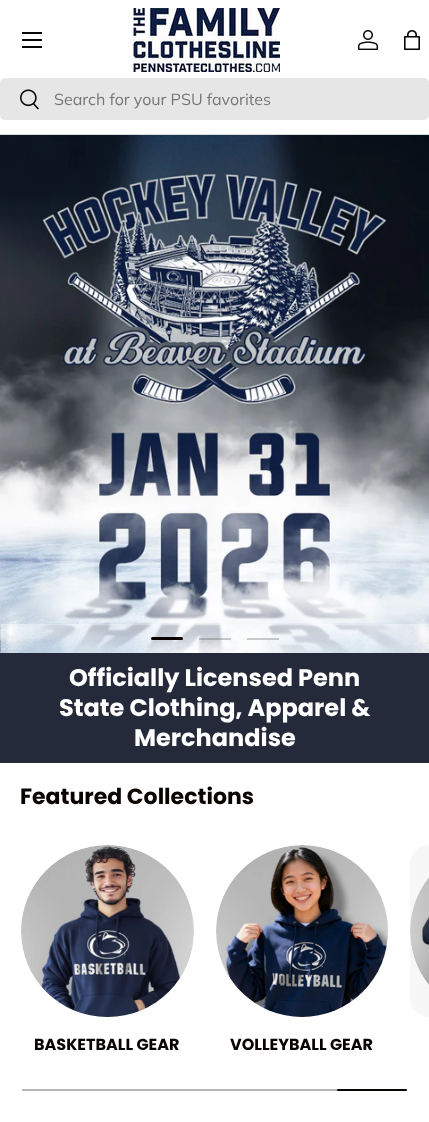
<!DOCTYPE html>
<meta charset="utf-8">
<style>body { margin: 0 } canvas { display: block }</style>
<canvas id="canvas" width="429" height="1122"></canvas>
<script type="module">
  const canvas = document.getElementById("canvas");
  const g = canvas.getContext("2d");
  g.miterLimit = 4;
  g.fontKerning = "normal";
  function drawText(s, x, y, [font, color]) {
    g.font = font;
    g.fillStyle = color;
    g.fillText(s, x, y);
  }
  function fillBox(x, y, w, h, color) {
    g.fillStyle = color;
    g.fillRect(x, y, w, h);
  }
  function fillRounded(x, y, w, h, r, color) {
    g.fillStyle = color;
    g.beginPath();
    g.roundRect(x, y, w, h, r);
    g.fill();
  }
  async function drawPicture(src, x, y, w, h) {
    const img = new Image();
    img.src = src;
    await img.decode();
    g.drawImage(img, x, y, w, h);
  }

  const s1 = ["16px Muli", "#777777"];
  const s2 = ["bold 24px Poppins", "#FFFFFF"];
  const s3 = ["bold 22px Poppins", "#090302"];
  const s4 = ["bold 16px Poppins", "#090302"];

  fillBox(0, 0, 429, 1122, "#FFFFFF");
  fillBox(0, 134, 429, 1, "#DADADA");
  fillBox(22, 32, 20, 2, "#070707");
  fillBox(22, 46, 20, 2, "#070707");
  fillBox(22, 39, 20, 2, "#070707");
  await drawPicture("pic1.png", 130, 8, 150, 64);
  await drawPicture("pic2.png", 358, 30, 20, 20);
  await drawPicture("pic3.png", 404, 30, 16, 20);
  fillRounded(0, 78, 429, 42, 5, "#E6E6E6");
  await drawPicture("pic4.png", 20, 89, 19, 21);
  drawText("Search for your PSU favorites", 54, 105, s1);
  await drawPicture("pic5.png", 0, 135, 429, 518);
  fillBox(1, 624, 428, 29, "rgba(255, 255, 255, 0.38)");
  fillRounded(151, 637, 32, 3, 1.5, "#090302");
  fillBox(199, 638, 32, 2, "rgba(9, 3, 2, 0.2)");
  fillBox(247, 638, 32, 2, "rgba(9, 3, 2, 0.2)");
  fillBox(0, 653, 429, 110, "#242A3A");
  drawText("Officially Licensed Penn", 69, 686, s2);
  drawText("State Clothing, Apparel &", 59, 716, s2);
  drawText("Merchandise", 134, 746, s2);
  drawText("Featured Collections", 20, 804, s3);
  g.fillStyle = "#F7F7F7";
  g.beginPath();
  g.roundRect(410, 845, 19, 172, [86, 0, 0, 86]);
  g.fill();
  await drawPicture("pic6.png", 410, 877, 19, 108);
  fillRounded(21, 845, 173, 172, 86, "#F7F7F7");
  await drawPicture("pic7.png", 21, 845, 173, 172);
  drawText("BASKETBALL GEAR", 34, 1050, s4);
  g.fillStyle = "#F7F7F7";
  g.beginPath();
  g.arc(302, 931, 86, 0, Math.PI * 2);
  g.fill();
  await drawPicture("pic8.png", 216, 845, 172, 172);
  drawText("VOLLEYBALL GEAR", 230, 1050, s4);
  fillRounded(22, 1089, 385, 2, 1, "#B5B3B3");
  fillRounded(337, 1089, 70, 2, 1, "#090302");
</script>
